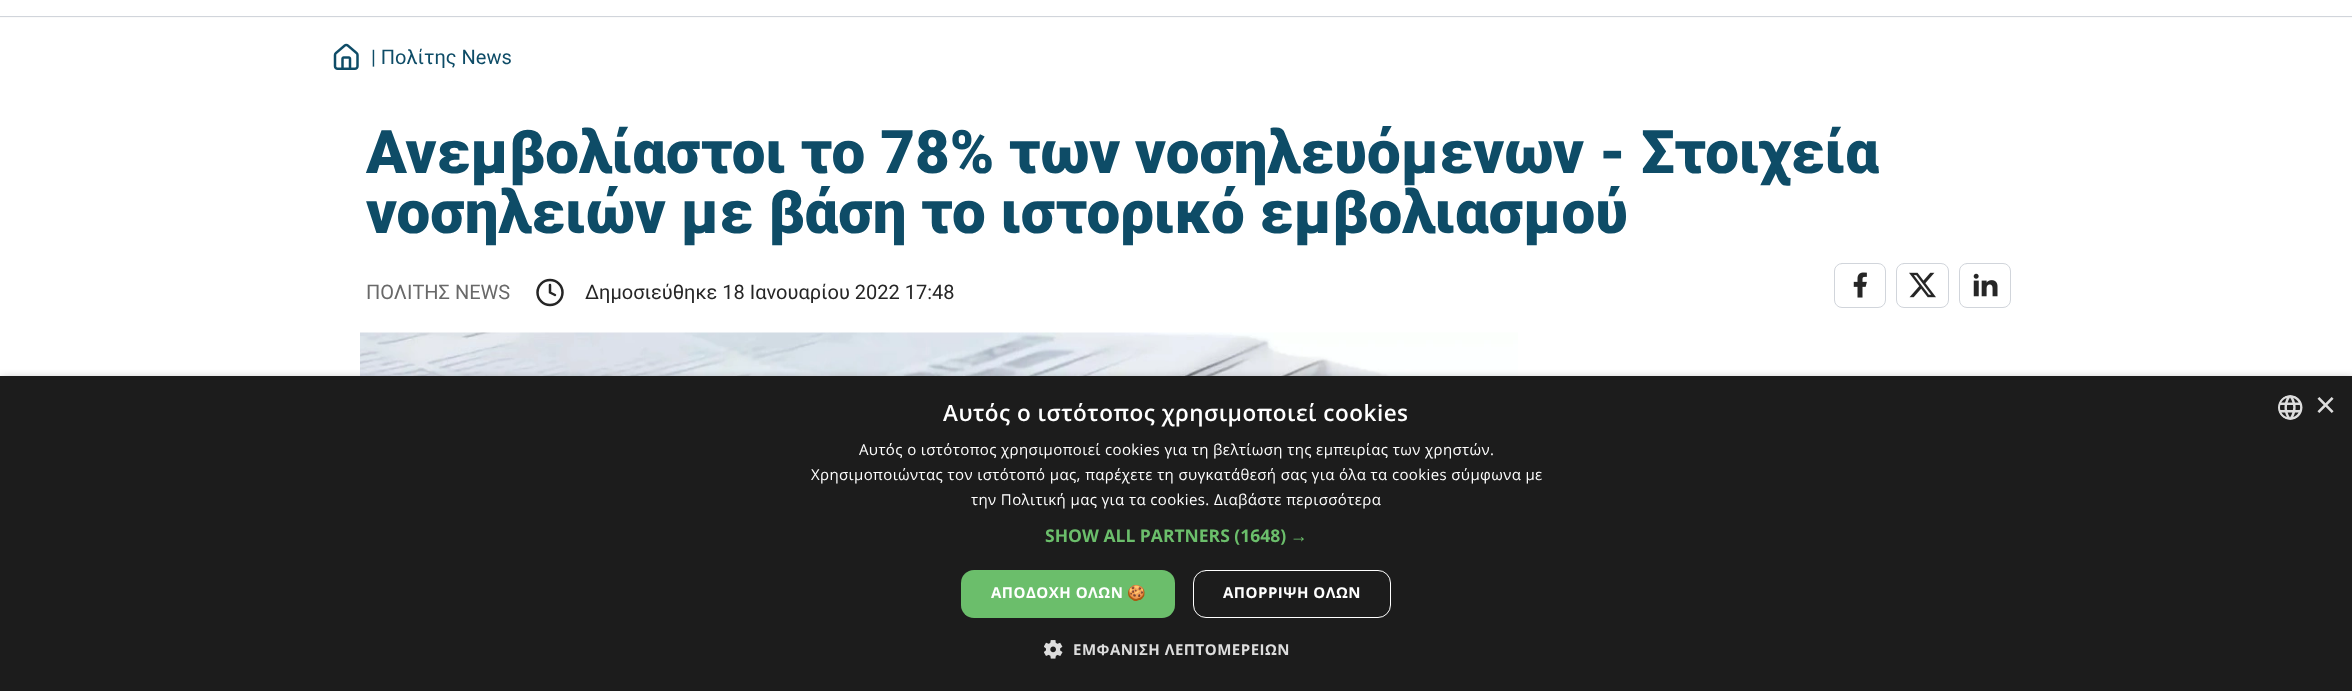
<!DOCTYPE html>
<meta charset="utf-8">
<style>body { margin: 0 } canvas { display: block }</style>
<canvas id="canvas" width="2352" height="691"></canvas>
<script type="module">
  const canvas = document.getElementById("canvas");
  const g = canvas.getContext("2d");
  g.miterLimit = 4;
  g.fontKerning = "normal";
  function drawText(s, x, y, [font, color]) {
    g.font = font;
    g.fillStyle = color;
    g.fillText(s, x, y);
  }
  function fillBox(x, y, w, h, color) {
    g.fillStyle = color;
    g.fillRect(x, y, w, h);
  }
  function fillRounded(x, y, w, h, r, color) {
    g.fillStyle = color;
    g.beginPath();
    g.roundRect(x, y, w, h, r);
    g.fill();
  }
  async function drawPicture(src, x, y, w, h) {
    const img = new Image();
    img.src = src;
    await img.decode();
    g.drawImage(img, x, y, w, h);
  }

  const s1 = ["20px Roboto", "#0E4C67"];
  const s2 = ["900 60px Roboto", "#0E4C67"];
  const s3 = ["20px Roboto", "#696969"];
  const s4 = ["20px Roboto", "#262626"];
  const s5 = ["600 22.5px Open Sans", "#FFFFFF"];
  const s6 = ["36px Liberation Sans", "#DDDDDD"];
  const s7 = ["15px Open Sans", "#FFFFFF"];
  const s8 = ["bold 17.5px Open Sans", "#6BBE6B"];
  const s9 = ["bold 17.5px Liberation Sans", "#6BBE6B"];
  const s10 = ["bold 15px Open Sans", "#FFFFFF"];
  const s11 = ["bold 15px Noto Color Emoji", "#FFFFFF"];
  const s12 = ["bold 15px Open Sans", "#DDDDDD"];

  fillBox(0, 0, 2352, 691, "#FAFAFA");
  fillBox(0, 0, 2352, 16, "#FFFFFF");
  fillBox(0, 16, 2352, 1, "#D1D5DB");
  fillBox(0, 18, 2352, 358, "#FFFFFF");
  await drawPicture("pic1.png", 333, 43, 26, 27);
  drawText("| Πολίτης News", 371, 64, s1);
  drawText("Ανεμβολίαστοι το 78% των νοσηλευόμενων - Στοιχεία", 366, 173, s2);
  drawText("νοσηλειών με βάση το ιστορικό εμβολιασμού", 366, 233, s2);
  drawText("ΠΟΛΙΤΗΣ NEWS", 366, 299, s3);
  g.beginPath();
  g.arc(550, 292.5, 12.5, 0, Math.PI * 2);
  g.strokeStyle = "#262626";
  g.lineWidth = 2.5;
  g.stroke();
  g.beginPath();
  g.moveTo(550, 285);
  g.lineTo(550, 292.5);
  g.lineTo(555, 295);
  g.lineCap = "round";
  g.lineJoin = "round";
  g.stroke();
  drawText("Δημοσιεύθηκε 18 Ιανουαρίου 2022 17:48", 585, 299, s4);
  g.beginPath();
  g.roundRect(1834.5, 263.5, 51, 44, 7.5);
  g.strokeStyle = "#D1D5DB";
  g.lineWidth = 1;
  g.lineJoin = "miter";
  g.stroke();
  await drawPicture("pic2.png", 1853, 272, 14, 26);
  g.beginPath();
  g.roundRect(1896.5, 263.5, 52, 44, 7.5);
  g.stroke();
  await drawPicture("pic3.png", 1909, 272, 27, 26);
  g.beginPath();
  g.roundRect(1959.5, 263.5, 51, 44, 7.5);
  g.stroke();
  await drawPicture("pic4.png", 1973, 273, 25, 24);
  await drawPicture("pic5.png", 360, 332, 1158, 44);
  g.fillStyle = "rgba(0, 0, 0, 0.35)";
  g.filter = "blur(5px)";
  g.beginPath();
  g.rect(1, 379, 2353, 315);
  g.fill();
  g.filter = "none";
  fillBox(0, 376, 2352, 315, "#1C1C1C");
  g.letterSpacing = "0.5px";
  drawText("Αυτός ο ιστότοπος χρησιμοποιεί cookies", 943, 421, s5);
  await drawPicture("pic6.png", 2278, 395, 25, 25);
  g.letterSpacing = "0px";
  drawText("×", 2315, 417, s6);
  g.letterSpacing = "0.38px";
  drawText("Αυτός ο ιστότοπος χρησιμοποιεί cookies για τη βελτίωση της εμπειρίας των χρηστών.", 859, 455, s7);
  drawText("Χρησιμοποιώντας τον ιστότοπό μας, παρέχετε τη συγκατάθεσή σας για όλα τα cookies σύμφωνα με", 811, 480, s7);
  drawText("την Πολιτική μας για τα cookies. Διαβάστε περισσότερα", 971, 505, s7);
  g.letterSpacing = "0px";
  drawText("SHOW ALL PARTNERS (1648)", 1045, 542, s8);
  drawText("→", 1290, 542, s9);
  fillRounded(961, 570, 214, 48, 13, "#6BBE6B");
  g.letterSpacing = "0.5px";
  drawText("ΑΠΟΔΟΧΗ ΟΛΩΝ", 991, 598, s10);
  drawText("🍪", 1127, 598, s11);
  g.beginPath();
  g.roundRect(1193.5, 570.5, 197, 47, 12.5);
  g.strokeStyle = "#FFFFFF";
  g.stroke();
  drawText("ΑΠΟΡΡΙΨΗ ΟΛΩΝ", 1223, 598, s10);
  await drawPicture("pic7.png", 1044, 640, 19, 19);
  drawText("ΕΜΦΑΝΙΣΗ ΛΕΠΤΟΜΕΡΕΙΩΝ", 1073, 655, s12);
</script>
